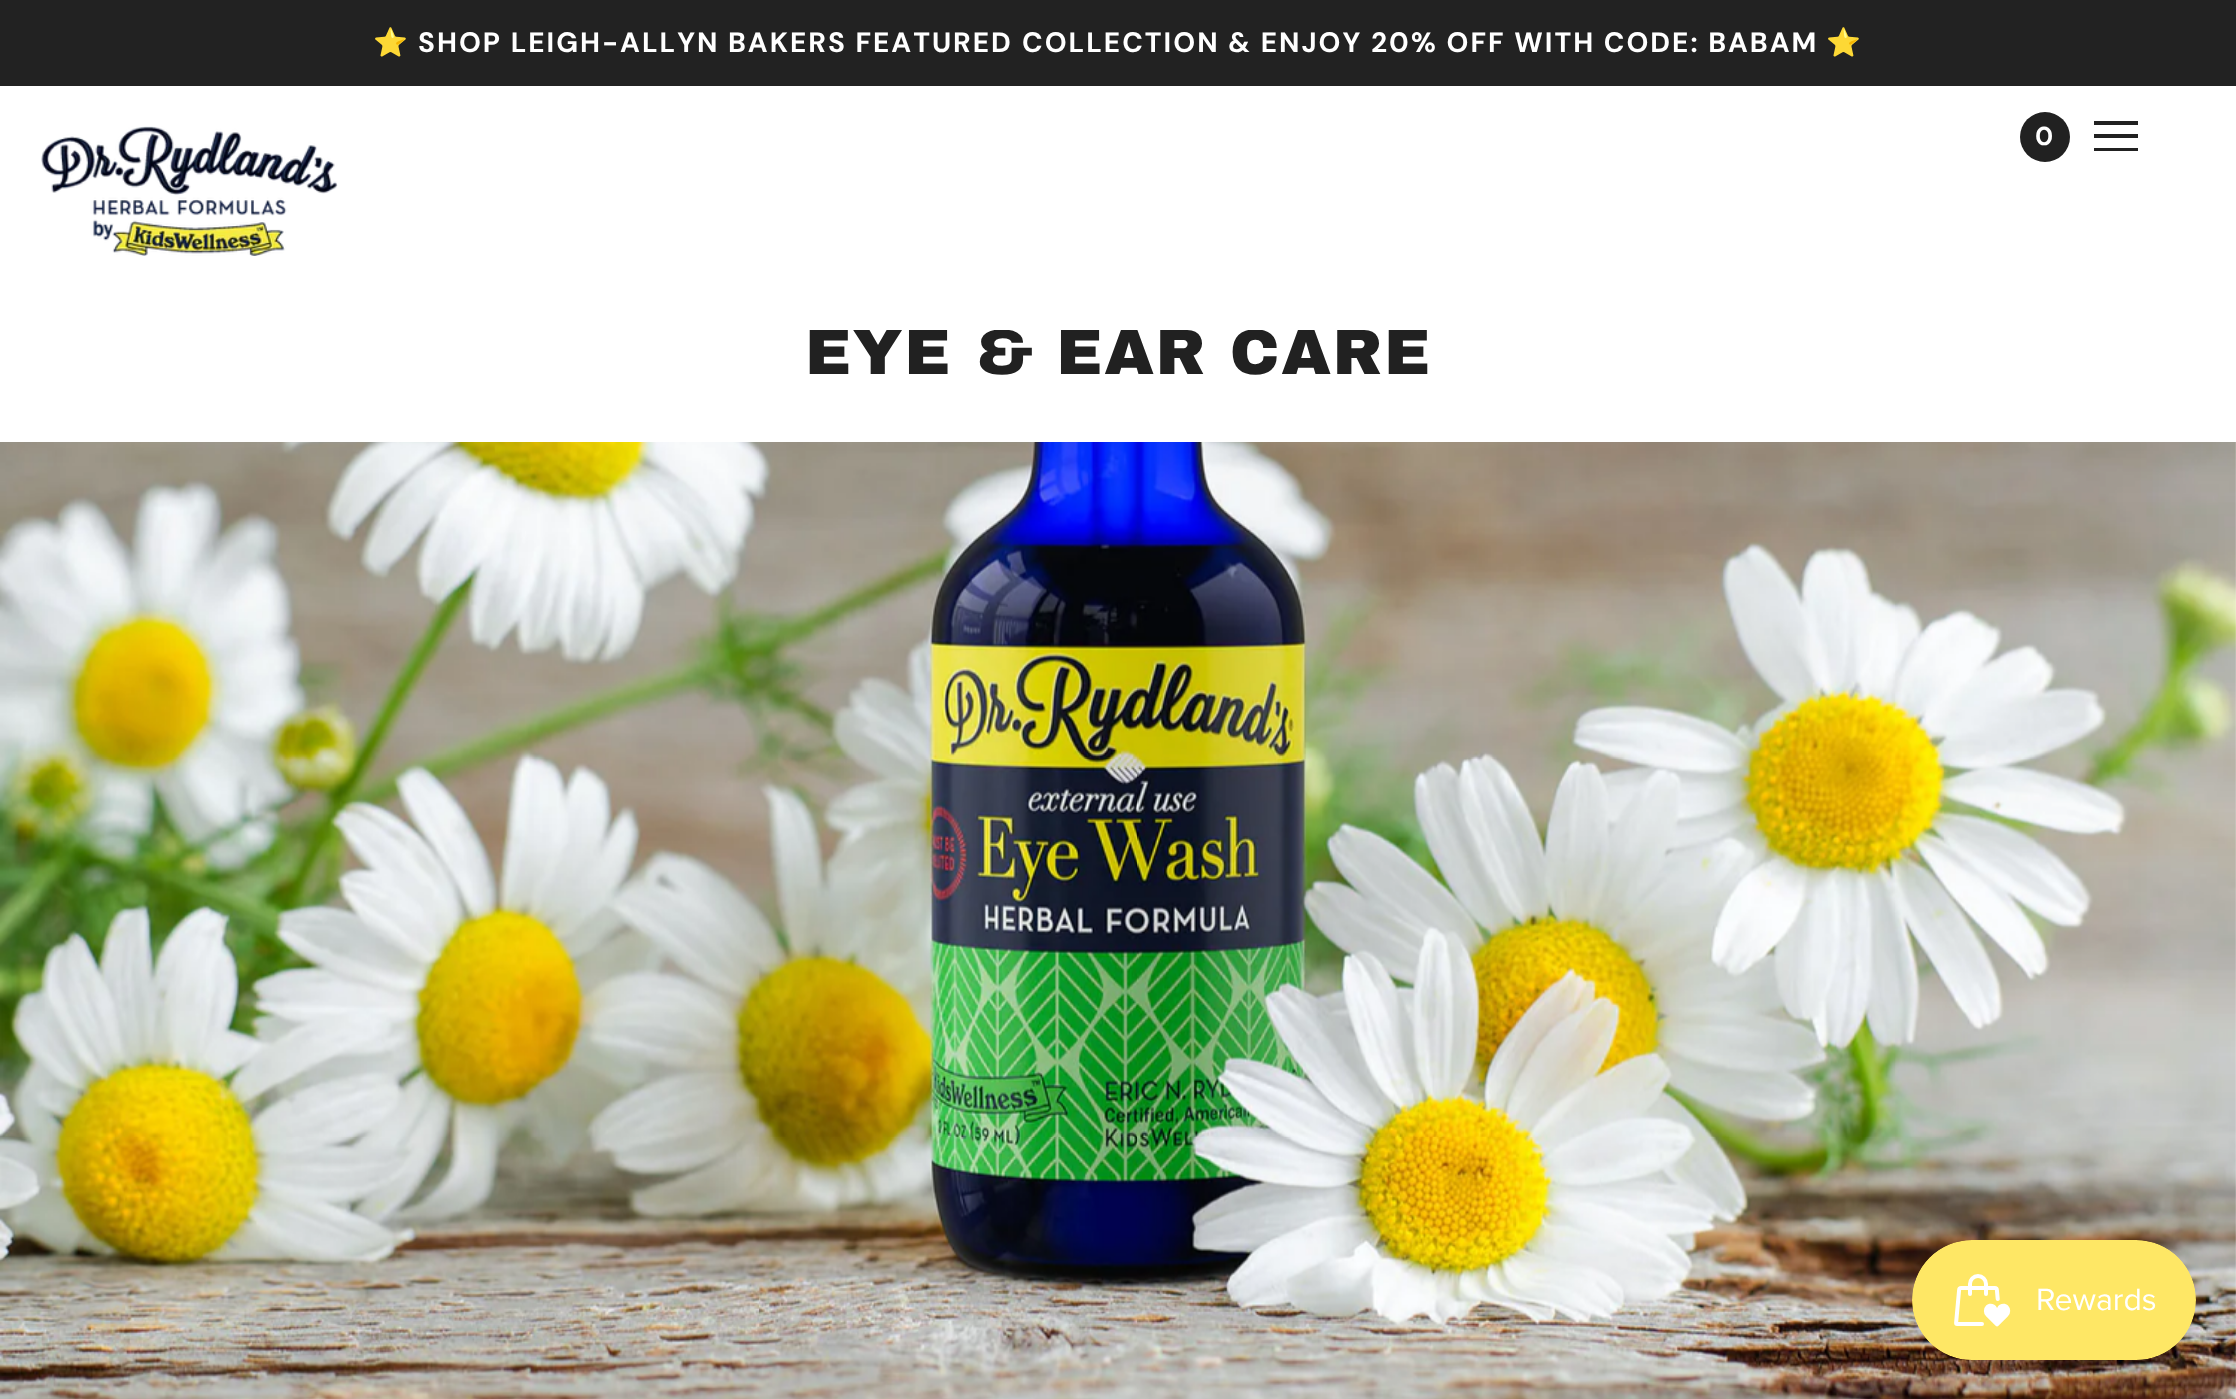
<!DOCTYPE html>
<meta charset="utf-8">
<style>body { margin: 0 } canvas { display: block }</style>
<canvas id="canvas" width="2236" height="1399"></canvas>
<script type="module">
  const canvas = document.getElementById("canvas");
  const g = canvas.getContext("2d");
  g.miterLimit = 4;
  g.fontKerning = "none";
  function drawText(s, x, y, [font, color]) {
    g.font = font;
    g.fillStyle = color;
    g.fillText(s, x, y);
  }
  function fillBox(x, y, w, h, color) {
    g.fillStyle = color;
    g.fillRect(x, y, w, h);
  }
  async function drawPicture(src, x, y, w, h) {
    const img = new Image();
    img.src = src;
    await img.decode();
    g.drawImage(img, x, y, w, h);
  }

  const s1 = ["bold 28px Noto Color Emoji", "#FFFFFF"];
  const s2 = ["bold 28px DM Sans", "#FFFFFF"];
  const s3 = ["bold 26px 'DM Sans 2'", "#FFFFFF"];
  const s4 = ["64px Archivo Black", "#212121"];

  fillBox(0, 0, 2236, 1399, "#FFFFFF");
  fillBox(0, 0, 2236, 86, "#222222");
  g.letterSpacing = "2px";
  drawText("⭐", 373, 52, s1);
  drawText("SHOP LEIGH-ALLYN BAKERS FEATURED", 418, 52, s2);
  drawText("COLLECTION & ENJOY 20% OFF WITH CODE: BABAM", 1022, 52, s2);
  drawText("⭐", 1826, 52, s1);
  await drawPicture("pic1.png", 41, 126, 297, 130);
  g.fillStyle = "#212121";
  g.beginPath();
  g.arc(2045, 137, 25, 0, Math.PI * 2);
  g.fill();
  drawText("0", 2035, 145, s3);
  g.fillStyle = "#212121";
  g.beginPath();
  g.moveTo(2094, 125);
  g.lineTo(2094, 121);
  g.lineTo(2138, 121);
  g.lineTo(2138, 125);
  g.closePath();
  g.moveTo(2094, 138);
  g.lineTo(2094, 134);
  g.lineTo(2138, 134);
  g.lineTo(2138, 138);
  g.closePath();
  g.moveTo(2094, 151);
  g.lineTo(2094, 148);
  g.lineTo(2138, 148);
  g.lineTo(2138, 151);
  g.closePath();
  g.fill();
  g.save();
  g.beginPath();
  g.rect(0, 330, 2236, 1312);
  g.clip();
  g.letterSpacing = "1.6px";
  drawText("EYE & EAR CARE", 805, 374, s4);
  g.restore();
  await drawPicture("pic2.png", 0, 442, 2236, 957);
  g.fillStyle = "rgba(0, 0, 0, 0.05)";
  g.filter = "blur(25px)";
  g.beginPath();
  g.roundRect(1912, 1240, 284, 120, 60);
  g.fill();
  g.filter = "none";
  await drawPicture("pic3.png", 1912, 1240, 284, 120);
</script>
